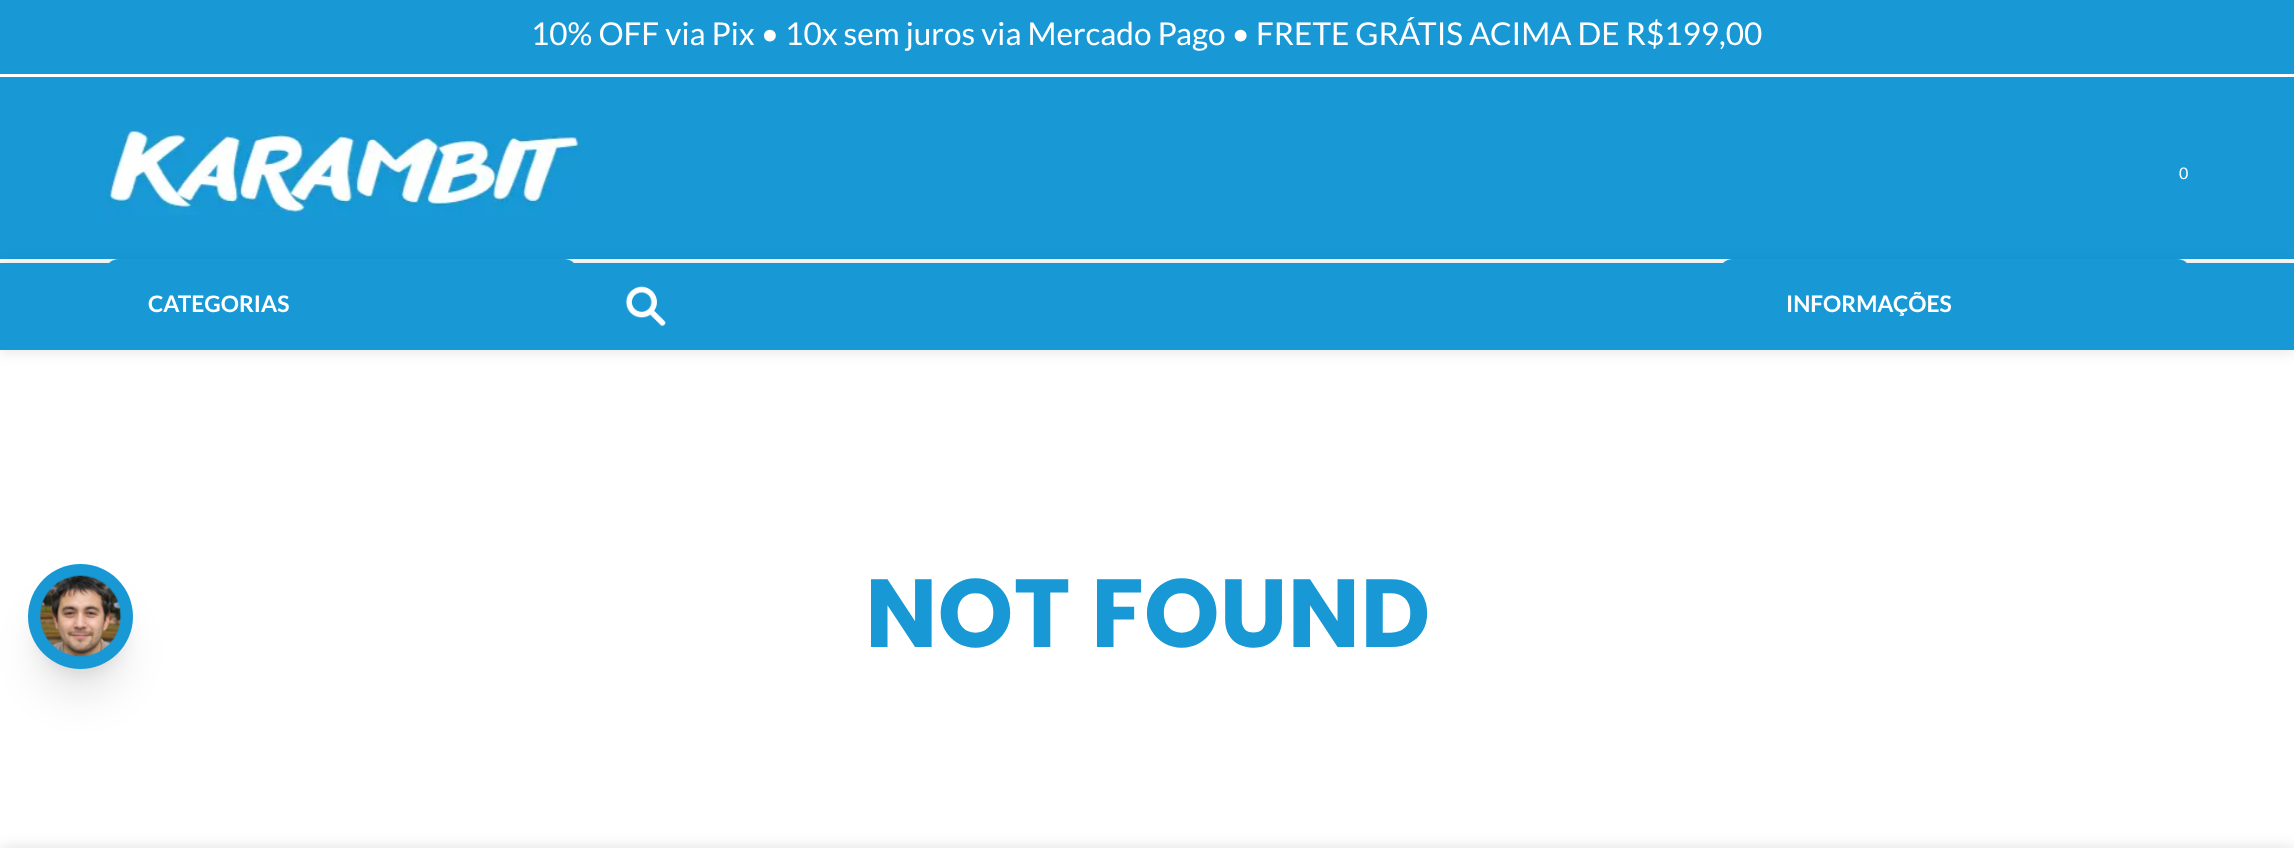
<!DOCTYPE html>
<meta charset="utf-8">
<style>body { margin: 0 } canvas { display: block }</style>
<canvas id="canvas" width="2294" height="848"></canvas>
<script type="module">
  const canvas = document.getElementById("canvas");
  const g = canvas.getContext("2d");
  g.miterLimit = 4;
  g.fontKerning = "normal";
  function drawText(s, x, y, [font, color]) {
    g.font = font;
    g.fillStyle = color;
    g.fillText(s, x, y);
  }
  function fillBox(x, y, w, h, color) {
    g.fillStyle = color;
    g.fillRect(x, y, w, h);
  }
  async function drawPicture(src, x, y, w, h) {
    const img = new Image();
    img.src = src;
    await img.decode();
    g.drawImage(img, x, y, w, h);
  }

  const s1 = ["31.5px Lato", "#FFFFFF"];
  const s2 = ["16px Lato", "#FFFFFF"];
  const s3 = ["bold 22.75px Lato", "#FFFFFF"];
  const s4 = ["bold 96.5px Poppins", "#1898D5"];

  fillBox(0, 0, 2294, 848, "#FFFFFF");
  g.fillStyle = "rgba(0, 0, 0, 0.1)";
  g.filter = "blur(9px)";
  g.beginPath();
  g.roundRect(39, 588, 84, 84, 42);
  g.fill();
  g.filter = "none";
  g.filter = "blur(22px)";
  g.beginPath();
  g.roundRect(37, 607, 87, 88, 43.5);
  g.fill();
  g.filter = "none";
  g.fillStyle = "#1898D5";
  g.beginPath();
  g.arc(80.5, 616.5, 52.5, 0, Math.PI * 2);
  g.fill();
  await drawPicture("pic1.png", 40, 575, 82, 82);
  fillBox(0, 0, 2294, 74, "#1898D5");
  drawText("10% OFF via Pix • 10x sem juros via Mercado Pago • FRETE GRÁTIS ACIMA DE R$199,00", 531, 45, s1);
  fillBox(0, 77, 2294, 182, "#1898D5");
  fillBox(0, 259, 2294, 4, "#FBFBFB");
  await drawPicture("pic2.png", 105, 129, 475, 87);
  drawText("0", 2179, 179, s2);
  g.fillStyle = "rgba(0, 0, 0, 0.1)";
  g.filter = "blur(7px)";
  g.beginPath();
  g.rect(0, 264, 2294, 88);
  g.fill();
  g.filter = "none";
  fillBox(0, 263, 2294, 87, "#1898D5");
  g.beginPath();
  g.roundRect(105, 259, 473, 91, [14, 14, 0, 0]);
  g.fill();
  drawText("CATEGORIAS", 148, 312, s3);
  await drawPicture("pic3.png", 625, 286, 41, 41);
  g.fillStyle = "#1898D5";
  g.beginPath();
  g.roundRect(1719, 259, 472, 91, [14, 14, 0, 0]);
  g.fill();
  drawText("INFORMAÇÕES", 1786, 312, s3);
  drawText("NOT FOUND", 865, 647, s4);
  g.fillStyle = "rgba(0, 0, 0, 0.14)";
  g.filter = "blur(8px)";
  g.beginPath();
  g.rect(0, 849, 2294, 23);
  g.fill();
  g.filter = "none";
</script>
